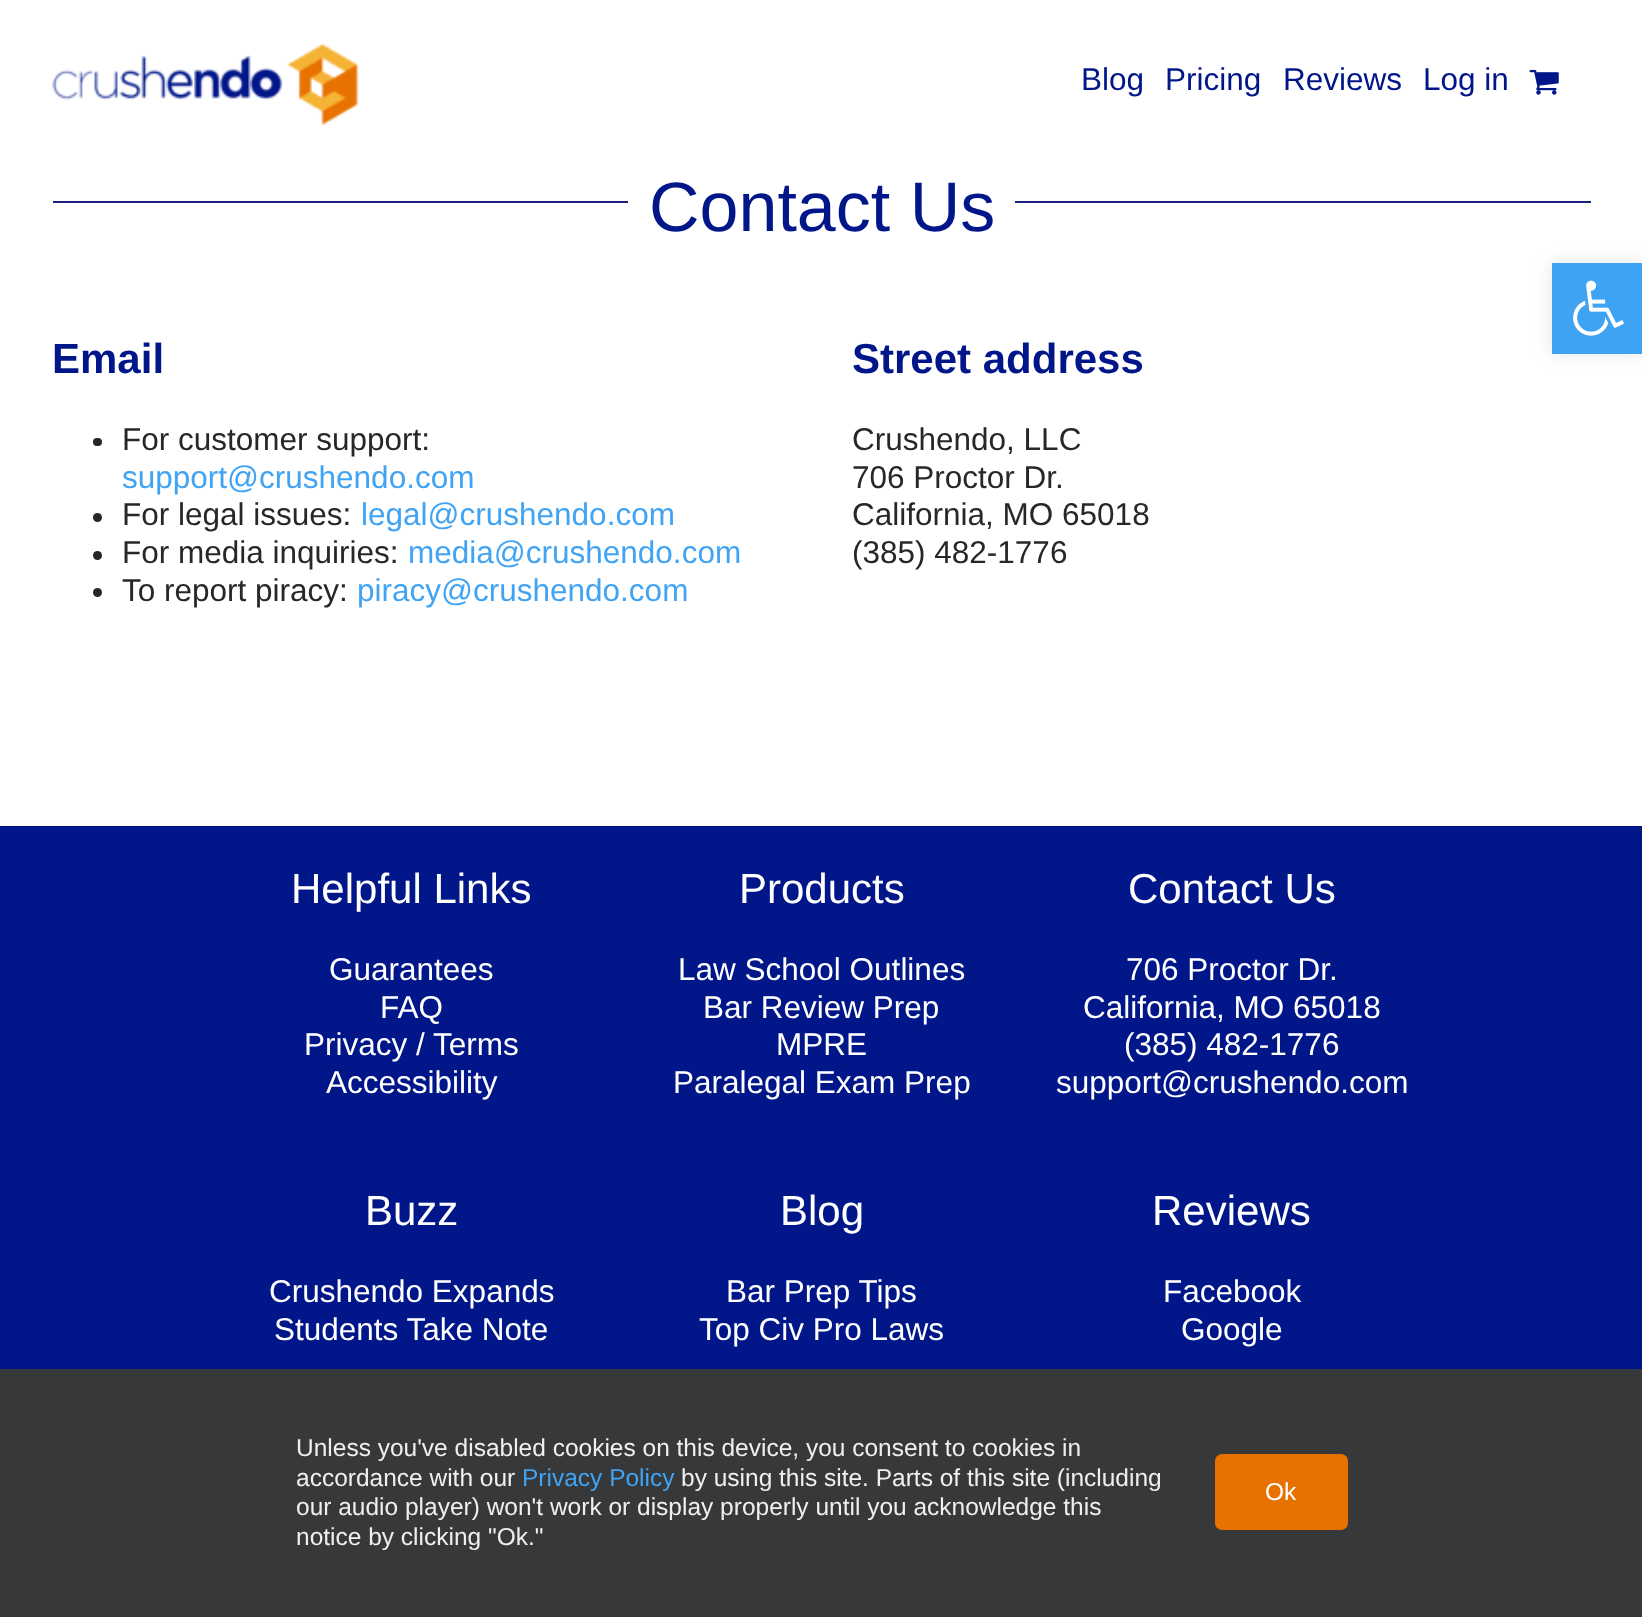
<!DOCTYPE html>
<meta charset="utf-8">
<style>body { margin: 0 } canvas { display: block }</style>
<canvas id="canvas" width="1642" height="1617"></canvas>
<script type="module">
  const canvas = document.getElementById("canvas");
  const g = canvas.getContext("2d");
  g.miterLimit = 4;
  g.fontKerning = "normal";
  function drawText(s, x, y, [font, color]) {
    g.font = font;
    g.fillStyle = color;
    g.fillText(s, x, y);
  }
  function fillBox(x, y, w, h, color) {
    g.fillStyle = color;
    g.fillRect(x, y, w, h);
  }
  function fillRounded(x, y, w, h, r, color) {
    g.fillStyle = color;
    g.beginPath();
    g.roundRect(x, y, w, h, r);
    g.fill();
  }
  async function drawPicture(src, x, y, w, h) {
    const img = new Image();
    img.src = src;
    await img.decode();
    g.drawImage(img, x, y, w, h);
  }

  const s1 = ["31.5px Liberation Sans", "#001689"];
  const s2 = ["70px Liberation Sans", "#001689"];
  const s3 = ["bold 42px Liberation Sans", "#001689"];
  const s4 = ["31.5px Liberation Sans", "#252729"];
  const s5 = ["31.5px Liberation Sans", "#40A3F3"];
  const s6 = ["42px Liberation Sans", "#FFFFFF"];
  const s7 = ["31.5px Liberation Sans", "#FFFFFF"];
  const s8 = ["24.5px Liberation Sans", "#EFEFEF"];
  const s9 = ["24.5px Liberation Sans", "#40A3F3"];
  const s10 = ["24.5px Liberation Sans", "#FFFFFF"];

  fillBox(0, 0, 1642, 1617, "#FFFFFF");
  await drawPicture("pic1.png", 52, 43, 307, 83);
  drawText("Blog", 1081, 90, s1);
  drawText("Pricing", 1165, 90, s1);
  drawText("Reviews", 1283, 90, s1);
  drawText("Log in", 1423, 90, s1);
  await drawPicture("pic2.png", 1529, 69, 30, 26);
  fillBox(53, 201, 575, 2, "#19227D");
  drawText("Contact Us", 649, 231, s2);
  fillBox(1015, 201, 576, 2, "#19227D");
  drawText("Email", 52, 373, s3);
  fillRounded(93, 438, 9, 8, 4, "#252729");
  drawText("For customer support:", 122, 450, s4);
  drawText("support@crushendo.com", 122, 488, s5);
  g.fillStyle = "#252729";
  g.beginPath();
  g.arc(97.5, 517.5, 4.5, 0, Math.PI * 2);
  g.fill();
  drawText("For legal issues:", 122, 525, s4);
  drawText("legal@crushendo.com", 361, 525, s5);
  g.fillStyle = "#252729";
  g.beginPath();
  g.arc(97.5, 555.5, 4.5, 0, Math.PI * 2);
  g.fill();
  drawText("For media inquiries:", 122, 563, s4);
  drawText("media@crushendo.com", 408, 563, s5);
  g.fillStyle = "#252729";
  g.beginPath();
  g.arc(97.5, 592.5, 4.5, 0, Math.PI * 2);
  g.fill();
  drawText("To report piracy:", 122, 601, s4);
  drawText("piracy@crushendo.com", 357, 601, s5);
  drawText("Street address", 852, 373, s3);
  drawText("Crushendo, LLC", 852, 450, s4);
  drawText("706 Proctor Dr.", 852, 488, s4);
  drawText("California, MO 65018", 852, 525, s4);
  drawText("(385) 482-1776", 852, 563, s4);
  fillBox(0, 826, 1642, 543, "#001689");
  drawText("Helpful Links", 291, 903, s6);
  drawText("Guarantees", 329, 980, s7);
  drawText("FAQ", 380, 1018, s7);
  drawText("Privacy / Terms", 304, 1055, s7);
  drawText("Accessibility", 326, 1093, s7);
  drawText("Buzz", 365, 1225, s6);
  drawText("Crushendo Expands", 269, 1302, s7);
  drawText("Students Take Note", 274, 1340, s7);
  drawText("Products", 739, 903, s6);
  drawText("Law School Outlines", 678, 980, s7);
  drawText("Bar Review Prep", 703, 1018, s7);
  drawText("MPRE", 776, 1055, s7);
  drawText("Paralegal Exam Prep", 673, 1093, s7);
  drawText("Blog", 780, 1225, s6);
  drawText("Bar Prep Tips", 726, 1302, s7);
  drawText("Top Civ Pro Laws", 699, 1340, s7);
  drawText("Contact Us", 1128, 903, s6);
  drawText("706 Proctor Dr.", 1126, 980, s7);
  drawText("California, MO 65018", 1083, 1018, s7);
  drawText("(385) 482-1776", 1124, 1055, s7);
  drawText("support@crushendo.com", 1056, 1093, s7);
  drawText("Reviews", 1152, 1225, s6);
  drawText("Facebook", 1163, 1302, s7);
  drawText("Google", 1181, 1340, s7);
  g.fillStyle = "rgba(0, 0, 0, 0.1)";
  g.filter = "blur(9px)";
  g.beginPath();
  g.rect(1552, 263, 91, 91);
  g.fill();
  g.filter = "none";
  fillBox(1552, 263, 90, 91, "#3FA3F3");
  await drawPicture("pic3.png", 1573, 280, 51, 56);
  fillBox(0, 1369, 1642, 248, "#363839");
  drawText("Unless you've disabled cookies on this device, you consent to cookies in", 296, 1456, s8);
  drawText("accordance with our", 296, 1486, s8);
  drawText("Privacy Policy", 522, 1486, s9);
  drawText("by using this site. Parts of this site (including", 681, 1486, s8);
  drawText("our audio player) won't work or display properly until you acknowledge this", 296, 1515, s8);
  drawText("notice by clicking \"Ok.\"", 296, 1545, s8);
  fillRounded(1215, 1454, 133, 76, 7, "#E87200");
  drawText("Ok", 1265, 1500, s10);
</script>
